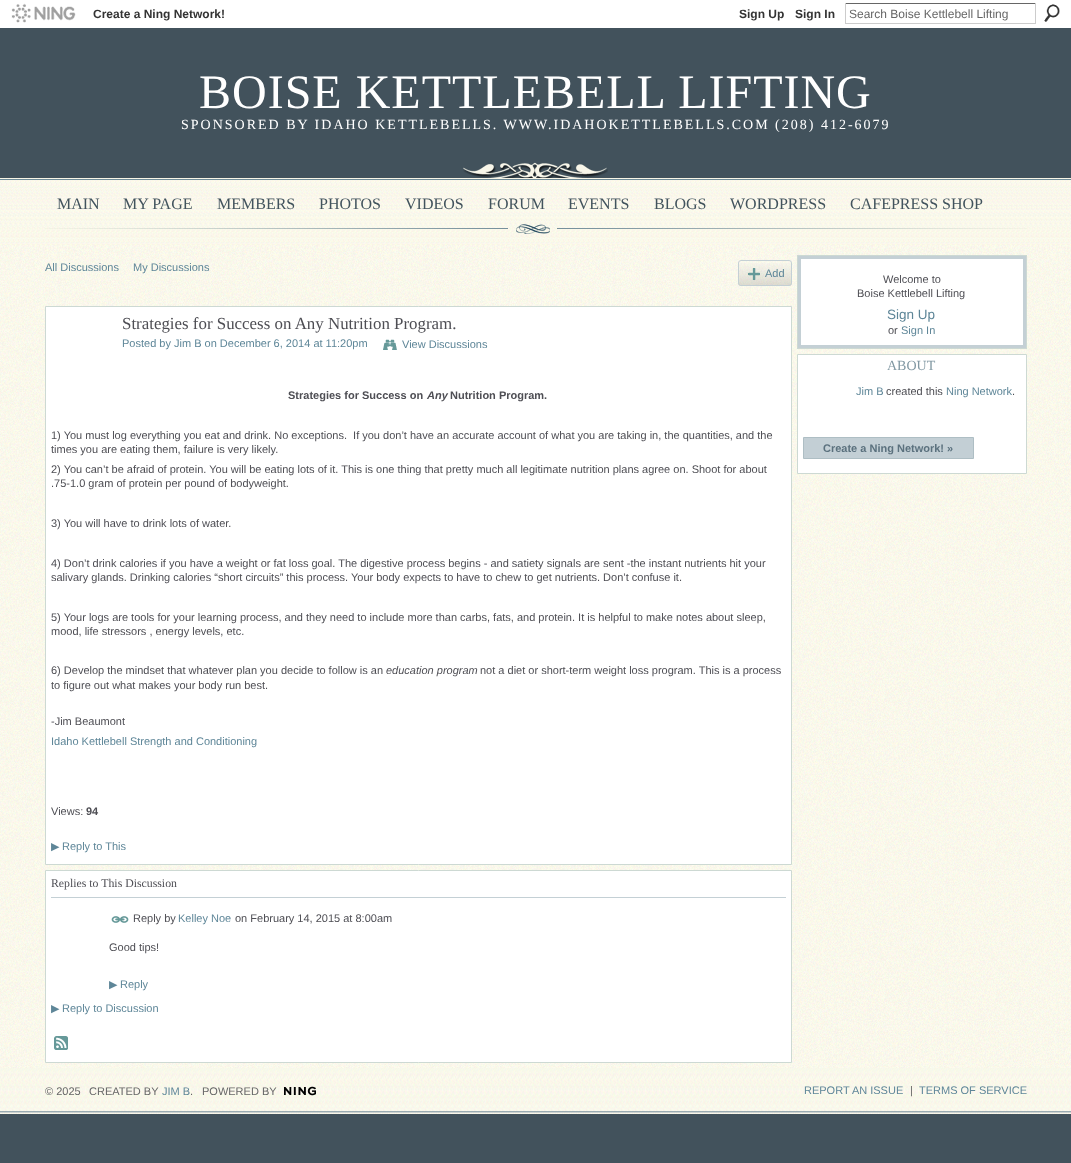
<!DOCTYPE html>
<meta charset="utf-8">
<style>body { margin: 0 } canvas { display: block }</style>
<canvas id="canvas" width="1071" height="1163"></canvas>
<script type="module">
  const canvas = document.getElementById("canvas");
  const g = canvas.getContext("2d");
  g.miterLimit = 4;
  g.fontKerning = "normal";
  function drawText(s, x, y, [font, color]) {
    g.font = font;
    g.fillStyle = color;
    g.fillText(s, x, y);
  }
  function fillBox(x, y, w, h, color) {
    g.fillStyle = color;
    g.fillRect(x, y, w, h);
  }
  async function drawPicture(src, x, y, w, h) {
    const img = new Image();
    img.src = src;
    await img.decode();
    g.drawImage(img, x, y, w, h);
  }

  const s1 = ["bold 12px Liberation Sans", "#333333"];
  const s2 = ["12px Liberation Sans", "#666666"];
  const s3 = ["48px Liberation Serif", "#FFFFFF"];
  const s4 = ["14px Liberation Serif", "#FFFFFF"];
  const s5 = ["16px Liberation Serif", "#42535D"];
  const s6 = ["11px Liberation Sans", "#5E8698"];
  const s7 = ["16.9px Liberation Serif", "#4E4E54"];
  const s8 = ["bold 11px Liberation Sans", "#4E4E54"];
  const s9 = ["italic bold 11px Liberation Sans", "#4E4E54"];
  const s10 = ["11px Liberation Sans", "#4E4E54"];
  const s11 = ["italic 11px Liberation Sans", "#4E4E54"];
  const s12 = ["11px DejaVu Sans", "#5E8698"];
  const s13 = ["11.8px Liberation Serif", "#4E4E54"];
  const s14 = ["13.5px Liberation Sans", "#5E8698"];
  const s15 = ["14px Liberation Serif", "#8198A3"];
  const s16 = ["bold 11px Liberation Sans", "#5B717E"];
  const s17 = ["11px Liberation Sans", "#666666"];

  fillBox(0, 0, 1071, 1163, "#42525C");
  fillBox(0, 0, 1071, 28, "#FFFFFF");
  await drawPicture("pic1.png", 11, 3, 65, 20);
  drawText("Create a Ning Network!", 93, 18, s1);
  drawText("Sign Up", 739, 18, s1);
  drawText("Sign In", 795, 18, s1);
  fillBox(845, 3, 191, 1, "#666666");
  fillBox(1035, 3, 1, 21, "#CCCCCC");
  fillBox(845, 23, 191, 1, "#CCCCCC");
  fillBox(845, 3, 1, 21, "#CCCCCC");
  drawText("Search Boise Kettlebell Lifting", 849, 18, s2);
  await drawPicture("pic2.png", 1044, 4, 16, 18);
  await drawPicture("pic3.png", 463, 162, 145, 16);
  g.letterSpacing = "1px";
  drawText("BOISE KETTLEBELL LIFTING", 199, 108, s3);
  g.letterSpacing = "2px";
  drawText("SPONSORED BY IDAHO KETTLEBELLS. WWW.IDAHOKETTLEBELLS.COM (208) 412-6079", 181, 129, s4);
  await drawPicture("pic4.png", 0, 178, 1071, 67);
  await drawPicture("pic5.png", 45, 224, 982, 10);
  g.letterSpacing = "0px";
  drawText("MAIN", 57, 209, s5);
  drawText("MY PAGE", 123, 209, s5);
  drawText("MEMBERS", 217, 209, s5);
  drawText("PHOTOS", 319, 209, s5);
  drawText("VIDEOS", 405, 209, s5);
  drawText("FORUM", 488, 209, s5);
  drawText("EVENTS", 568, 209, s5);
  drawText("BLOGS", 654, 209, s5);
  drawText("WORDPRESS", 730, 209, s5);
  drawText("CAFEPRESS SHOP", 850, 209, s5);
  await drawPicture("pic6.png", 0, 245, 1071, 823);
  drawText("All Discussions", 45, 271, s6);
  drawText("My Discussions", 133, 271, s6);
  await drawPicture("pic7.png", 738, 263, 54, 23);
  g.beginPath();
  g.roundRect(738.5, 260.5, 53, 25, 2.5);
  g.strokeStyle = "#C4D0D5";
  g.stroke();
  await drawPicture("pic8.png", 748, 268, 12, 12);
  drawText("Add", 765, 277, s6);
  g.fillStyle = "#FFFFFF";
  g.beginPath();
  g.rect(45.5, 306.5, 746, 558);
  g.fill();
  g.strokeStyle = "#CDD9D3";
  g.stroke();
  drawText("Strategies for Success on Any Nutrition Program.", 122, 329, s7);
  drawText("Posted by Jim B on December 6, 2014 at 11:20pm", 122, 347, s6);
  await drawPicture("pic9.png", 383, 339, 14, 11);
  drawText("View Discussions", 402, 348, s6);
  drawText("Strategies for Success on", 288, 399, s8);
  drawText("Any", 427, 399, s9);
  drawText("Nutrition Program.", 450, 399, s8);
  drawText("1) You must log everything you eat and drink. No exceptions.  If you don’t have an accurate account of what you are taking in, the quantities, and the", 51, 439, s10);
  drawText("times you are eating them, failure is very likely.", 51, 453, s10);
  drawText("2) You can’t be afraid of protein. You will be eating lots of it. This is one thing that pretty much all legitimate nutrition plans agree on. Shoot for about", 51, 473, s10);
  drawText(".75-1.0 gram of protein per pound of bodyweight.", 51, 487, s10);
  drawText("3) You will have to drink lots of water.", 51, 527, s10);
  drawText("4) Don’t drink calories if you have a weight or fat loss goal. The digestive process begins - and satiety signals are sent -the instant nutrients hit your", 51, 567, s10);
  drawText("salivary glands. Drinking calories “short circuits” this process. Your body expects to have to chew to get nutrients. Don’t confuse it.", 51, 581, s10);
  drawText("5) Your logs are tools for your learning process, and they need to include more than carbs, fats, and protein. It is helpful to make notes about sleep,", 51, 621, s10);
  drawText("mood, life stressors , energy levels, etc.", 51, 635, s10);
  drawText("6) Develop the mindset that whatever plan you decide to follow is an", 51, 674, s10);
  drawText("education program", 386, 674, s11);
  drawText("not a diet or short-term weight loss program. This is a process", 480, 674, s10);
  drawText("to figure out what makes your body run best.", 51, 689, s10);
  drawText("-Jim Beaumont", 51, 725, s10);
  drawText("Idaho Kettlebell Strength and Conditioning", 51, 745, s6);
  drawText("Views:", 51, 815, s10);
  drawText("94", 86, 815, s8);
  drawText("▶", 51, 850, s12);
  drawText("Reply to This", 62, 850, s6);
  g.fillStyle = "#FFFFFF";
  g.beginPath();
  g.rect(45.5, 870.5, 746, 192);
  g.fill();
  g.stroke();
  drawText("Replies to This Discussion", 51, 887, s13);
  fillBox(51, 897, 735, 1, "#C4D0D5");
  await drawPicture("pic10.png", 111, 916, 18, 7);
  drawText("Reply by", 133, 922, s10);
  drawText("Kelley Noe", 178, 922, s6);
  drawText("on February 14, 2015 at 8:00am", 235, 922, s10);
  drawText("Good tips!", 109, 951, s10);
  drawText("▶", 109, 988, s12);
  drawText("Reply", 120, 988, s6);
  drawText("▶", 51, 1012, s12);
  drawText("Reply to Discussion", 62, 1012, s6);
  await drawPicture("pic11.png", 54, 1036, 14, 14);
  fillBox(801, 259, 222, 86, "#FFFFFF");
  g.strokeRect(797.5, 255.5, 229, 93);
  g.strokeStyle = "#C4D0D5";
  g.lineWidth = 3;
  g.strokeRect(799.5, 257.5, 225, 89);
  drawText("Welcome to", 883, 283, s10);
  drawText("Boise Kettlebell Lifting", 857, 297, s10);
  drawText("Sign Up", 887, 319, s14);
  drawText("or", 888, 334, s10);
  drawText("Sign In", 901, 334, s6);
  g.fillStyle = "#FFFFFF";
  g.beginPath();
  g.rect(797.5, 354.5, 229, 119);
  g.fill();
  g.strokeStyle = "#CDD9D3";
  g.lineWidth = 1;
  g.stroke();
  drawText("ABOUT", 887, 370, s15);
  drawText("Jim B", 856, 395, s6);
  drawText("created this", 886, 395, s10);
  drawText("Ning Network", 946, 395, s6);
  drawText(".", 1012, 395, s10);
  g.fillStyle = "#C3CFD5";
  g.beginPath();
  g.rect(803.5, 437.5, 170, 21);
  g.fill();
  g.strokeStyle = "#AEBEC4";
  g.stroke();
  drawText("Create a Ning Network! »", 823, 452, s16);
  await drawPicture("pic12.png", 0, 1068, 1071, 46);
  drawText("© 2025", 45, 1095, s17);
  drawText("CREATED BY", 89, 1095, s17);
  drawText("JIM B", 162, 1095, s6);
  drawText(".", 190, 1095, s17);
  drawText("POWERED BY", 202, 1095, s17);
  await drawPicture("pic13.png", 284, 1086, 32, 10);
  drawText("REPORT AN ISSUE", 804, 1094, s6);
  drawText("|", 910, 1094, s17);
  drawText("TERMS OF SERVICE", 919, 1094, s6);
</script>
